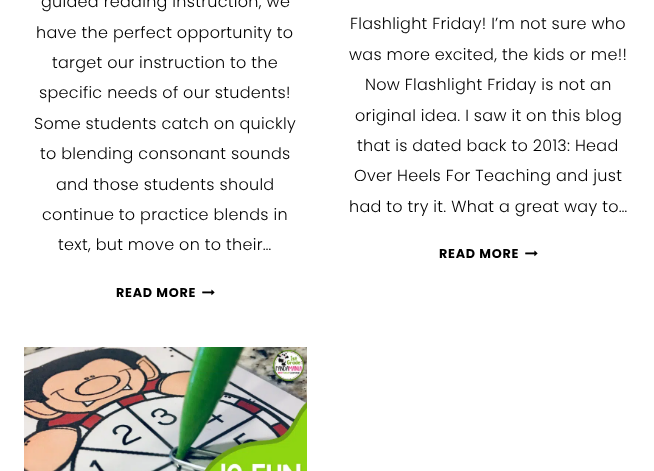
<!DOCTYPE html>
<meta charset="utf-8">
<style>body { margin: 0 } canvas { display: block }</style>
<canvas id="canvas" width="654" height="471"></canvas>
<script type="module">
  const canvas = document.getElementById("canvas");
  const g = canvas.getContext("2d");
  g.miterLimit = 4;
  g.fontKerning = "normal";
  function drawText(s, x, y, [font, color]) {
    g.font = font;
    g.fillStyle = color;
    g.fillText(s, x, y);
  }
  function fillBox(x, y, w, h, color) {
    g.fillStyle = color;
    g.fillRect(x, y, w, h);
  }
  async function drawPicture(src, x, y, w, h) {
    const img = new Image();
    img.src = src;
    await img.decode();
    g.drawImage(img, x, y, w, h);
  }

  const s1 = ["300 16px Poppins", "#000000"];
  const s2 = ["bold 12.75px Poppins", "#000000"];

  fillBox(0, 0, 654, 471, "#FFFFFF");
  g.letterSpacing = "0.3px";
  drawText("guided reading instruction, we", 41, 7, s1);
  drawText("have the perfect opportunity to", 36, 38, s1);
  drawText("target our instruction to the", 52, 68, s1);
  drawText("specific needs of our students!", 39, 98, s1);
  drawText("Some students catch on quickly", 34, 129, s1);
  drawText("to blending consonant sounds", 40, 159, s1);
  drawText("and those students should", 56, 190, s1);
  drawText("continue to practice blends in", 42, 220, s1);
  drawText("text, but move on to their…", 58, 250, s1);
  g.letterSpacing = "0.75px";
  drawText("READ MORE", 116, 297, s2);
  await drawPicture("pic1.png", 202, 289, 13, 7);
  g.letterSpacing = "0.3px";
  drawText("Flashlight Friday! I’m not sure who", 350, 29, s1);
  drawText("was more excited, the kids or me!!", 349, 60, s1);
  drawText("Now Flashlight Friday is not an", 365, 90, s1);
  drawText("original idea. I saw it on this blog", 355, 121, s1);
  drawText("that is dated back to 2013: Head", 357, 151, s1);
  drawText("Over Heels For Teaching and just", 354, 181, s1);
  drawText("had to try it. What a great way to…", 349, 212, s1);
  g.letterSpacing = "0.75px";
  drawText("READ MORE", 439, 258, s2);
  await drawPicture("pic1.png", 525, 250, 13, 7);
  await drawPicture("pic2.png", 24, 347, 283, 124);
</script>
